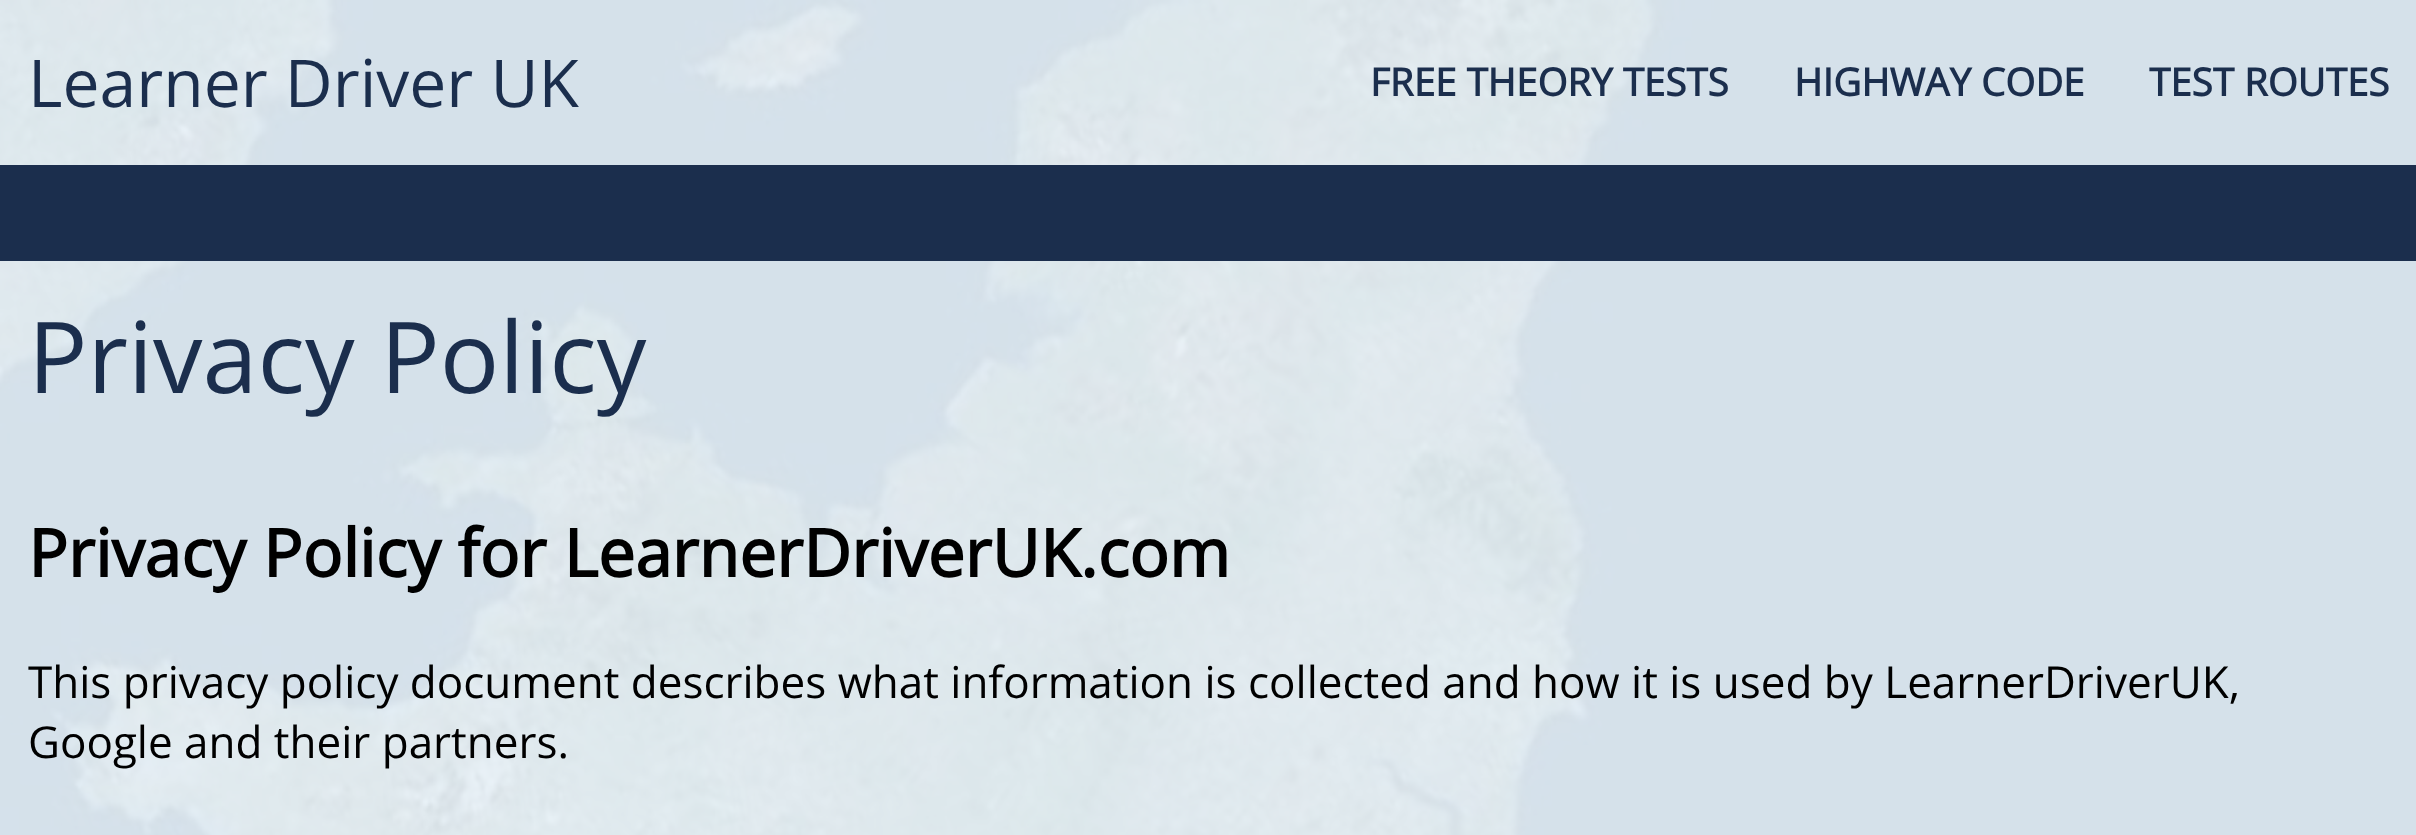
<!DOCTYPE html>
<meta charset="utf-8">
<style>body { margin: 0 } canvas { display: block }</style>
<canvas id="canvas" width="2416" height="835"></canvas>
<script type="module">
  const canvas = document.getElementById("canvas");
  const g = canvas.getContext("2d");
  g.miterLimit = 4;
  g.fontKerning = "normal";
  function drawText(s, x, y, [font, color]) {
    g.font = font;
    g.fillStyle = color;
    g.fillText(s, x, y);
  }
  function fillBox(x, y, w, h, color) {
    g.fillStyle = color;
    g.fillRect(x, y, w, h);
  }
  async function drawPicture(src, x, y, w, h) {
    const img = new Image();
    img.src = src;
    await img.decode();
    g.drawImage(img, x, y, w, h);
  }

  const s1 = ["66px Open Sans", "#1B2E4D"];
  const s2 = ["bold 38.5px Open Sans", "#1B2E4D"];
  const s3 = ["99px Open Sans", "#1B2E4D"];
  const s4 = ["bold 66px Open Sans", "#000000"];
  const s5 = ["44px Open Sans", "#000000"];

  fillBox(0, 0, 2416, 835, "#FFFFFF");
  await drawPicture("pic1.png", 0, 0, 2416, 835);
  drawText("Learner Driver UK", 28, 107, s1);
  drawText("FREE THEORY TESTS", 1370, 96, s2);
  drawText("HIGHWAY CODE", 1794, 96, s2);
  drawText("TEST ROUTES", 2149, 96, s2);
  fillBox(0, 165, 2416, 96, "#1B2E4D");
  drawText("Privacy Policy", 28, 393, s3);
  drawText("Privacy Policy for LearnerDriverUK.com", 28, 577, s4);
  drawText("This privacy policy document describes what information is collected and how it is used by LearnerDriverUK,", 28, 698, s5);
  drawText("Google and their partners.", 28, 758, s5);
</script>
